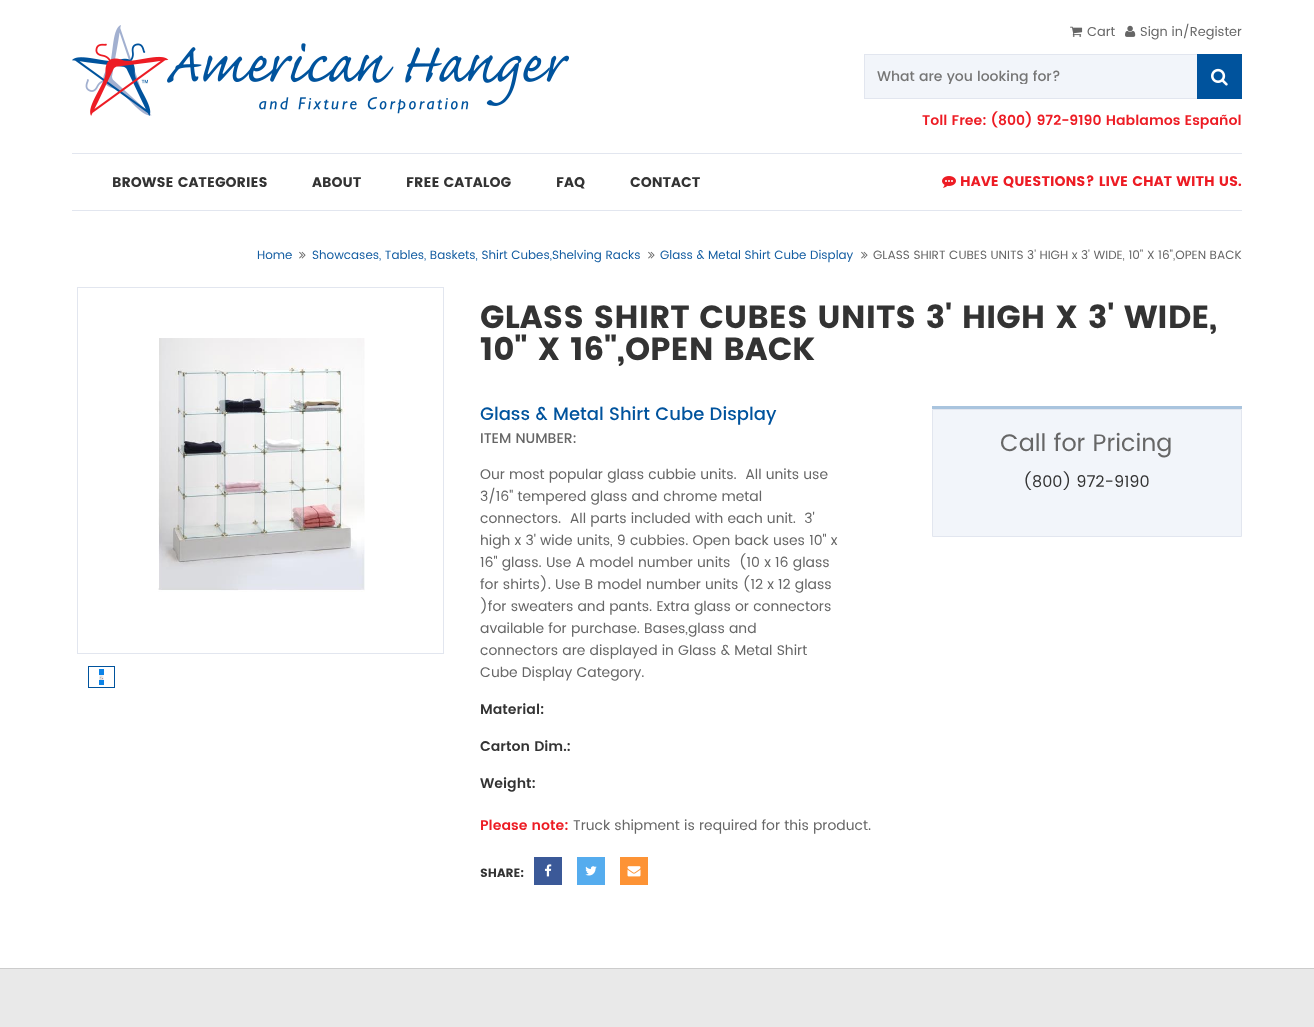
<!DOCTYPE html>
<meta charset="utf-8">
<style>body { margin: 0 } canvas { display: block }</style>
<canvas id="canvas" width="1314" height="1027"></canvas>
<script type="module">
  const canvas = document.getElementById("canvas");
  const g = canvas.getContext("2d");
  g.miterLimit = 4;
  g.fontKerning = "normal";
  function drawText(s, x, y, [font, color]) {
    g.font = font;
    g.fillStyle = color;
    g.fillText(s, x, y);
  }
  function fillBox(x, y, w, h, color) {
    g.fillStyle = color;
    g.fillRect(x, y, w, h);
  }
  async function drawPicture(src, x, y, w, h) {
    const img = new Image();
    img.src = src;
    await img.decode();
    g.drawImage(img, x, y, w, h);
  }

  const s1 = ["13px Poppins", "#666666"];
  const s2 = ["500 14px Poppins", "#757575"];
  const s3 = ["600 14px Poppins", "#ED1C24"];
  const s4 = ["bold 14px Poppins", "#333333"];
  const s5 = ["bold 14px Poppins", "#ED1C24"];
  const s6 = ["12px Poppins", "#155EA2"];
  const s7 = ["12px Poppins", "#666666"];
  const s8 = ["bold 32px Poppins", "#333333"];
  const s9 = ["500 18px Poppins", "#00539D"];
  const s10 = ["500 14px Poppins", "#666666"];
  const s11 = ["14px Poppins", "#666666"];
  const s12 = ["600 14px Poppins", "#333333"];
  const s13 = ["bold 12px Poppins", "#333333"];
  const s14 = ["24px Poppins", "#666666"];
  const s15 = ["16px Poppins", "#333333"];

  fillBox(0, 0, 1314, 1027, "#FFFFFF");
  await drawPicture("pic1.png", 72, 25, 497, 91);
  await drawPicture("pic2.png", 1070, 26, 13, 11);
  drawText("Cart", 1087, 36, s1);
  await drawPicture("pic3.png", 1125, 25, 11, 12);
  drawText("Sign in/Register", 1140, 36, s1);
  fillBox(865, 55, 332, 43, "#F2F5FA");
  g.strokeStyle = "#E2E6EF";
  g.strokeRect(864.5, 54.5, 377, 44);
  g.save();
  g.beginPath();
  g.rect(877, 70, 314, 14);
  g.clip();
  drawText("What are you looking for?", 877, 81, s2);
  g.restore();
  fillBox(1197, 54, 45, 45, "#00539D");
  await drawPicture("pic4.png", 1211, 68, 17, 18);
  drawText("Toll Free: (800) 972-9190 Hablamos Español", 922, 125, s3);
  fillBox(72, 153, 1170, 1, "#E2E6EF");
  fillBox(72, 210, 1170, 1, "#E2E6EF");
  drawText("BROWSE CATEGORIES", 112, 187, s4);
  drawText("ABOUT", 312, 187, s4);
  drawText("FREE CATALOG", 406, 187, s4);
  drawText("FAQ", 556, 187, s4);
  drawText("CONTACT", 630, 187, s4);
  await drawPicture("pic5.png", 942, 176, 14, 12);
  drawText("HAVE QUESTIONS? LIVE CHAT WITH US.", 960, 186, s5);
  drawText("Home", 257, 259, s6);
  await drawPicture("pic6.png", 299, 251, 7, 8);
  drawText("Showcases, Tables, Baskets, Shirt Cubes,Shelving Racks", 312, 259, s6);
  await drawPicture("pic6.png", 648, 251, 7, 8);
  drawText("Glass & Metal Shirt Cube Display", 660, 259, s6);
  await drawPicture("pic6.png", 861, 251, 7, 8);
  drawText("GLASS SHIRT CUBES UNITS 3' HIGH x 3' WIDE, 10\" X 16\",OPEN BACK", 873, 259, s7);
  g.strokeRect(77.5, 287.5, 366, 366);
  await drawPicture("pic7.png", 158, 338, 207, 254);
  g.strokeStyle = "#00539D";
  g.strokeRect(88.5, 666.5, 26, 21);
  fillBox(99, 669, 5, 16, "#0C83E7");
  await drawPicture("pic8.png", 99, 675, 5, 5);
  drawText("GLASS SHIRT CUBES UNITS 3' HIGH X 3' WIDE,", 480, 328, s8);
  drawText("10\" X 16\",OPEN BACK", 480, 360, s8);
  drawText("Glass & Metal Shirt Cube Display", 480, 420, s9);
  drawText("ITEM NUMBER:", 480, 443, s10);
  drawText("Our most popular glass cubbie units.  All units use", 480, 479, s11);
  drawText("3/16\" tempered glass and chrome metal", 480, 501, s11);
  drawText("connectors.  All parts included with each unit.  3'", 480, 523, s11);
  drawText("high x 3' wide units, 9 cubbies. Open back uses 10\" x", 480, 545, s11);
  drawText("16\" glass. Use A model number units  (10 x 16 glass", 480, 567, s11);
  drawText("for shirts). Use B model number units (12 x 12 glass", 480, 589, s11);
  drawText(")for sweaters and pants. Extra glass or connectors", 480, 611, s11);
  drawText("available for purchase. Bases,glass and", 480, 633, s11);
  drawText("connectors are displayed in Glass & Metal Shirt", 480, 655, s11);
  drawText("Cube Display Category.", 480, 677, s11);
  drawText("Material:", 480, 714, s12);
  drawText("Carton Dim.:", 480, 751, s12);
  drawText("Weight:", 480, 788, s12);
  drawText("Please note:", 480, 830, s3);
  drawText("Truck shipment is required for this product.", 573, 830, s11);
  drawText("SHARE:", 480, 877, s13);
  fillBox(534, 857, 28, 28, "#3B5998");
  await drawPicture("pic9.png", 544, 864, 8, 13);
  fillBox(577, 857, 28, 28, "#55ACEE");
  await drawPicture("pic10.png", 585, 866, 12, 10);
  fillBox(620, 857, 28, 28, "#FD9335");
  await drawPicture("pic11.png", 627, 866, 14, 11);
  fillBox(932, 406, 310, 3, "#A9C4DE");
  g.fillStyle = "#F2F5FA";
  g.beginPath();
  g.rect(932.5, 409.5, 309, 127);
  g.fill();
  g.strokeStyle = "#E2E6EF";
  g.stroke();
  drawText("Call for Pricing", 1000, 451, s14);
  drawText("(800) 972-9190", 1023, 487, s15);
  fillBox(0, 969, 1314, 58, "#E9E9E9");
  fillBox(0, 968, 1314, 1, "#CCCCCC");
</script>
